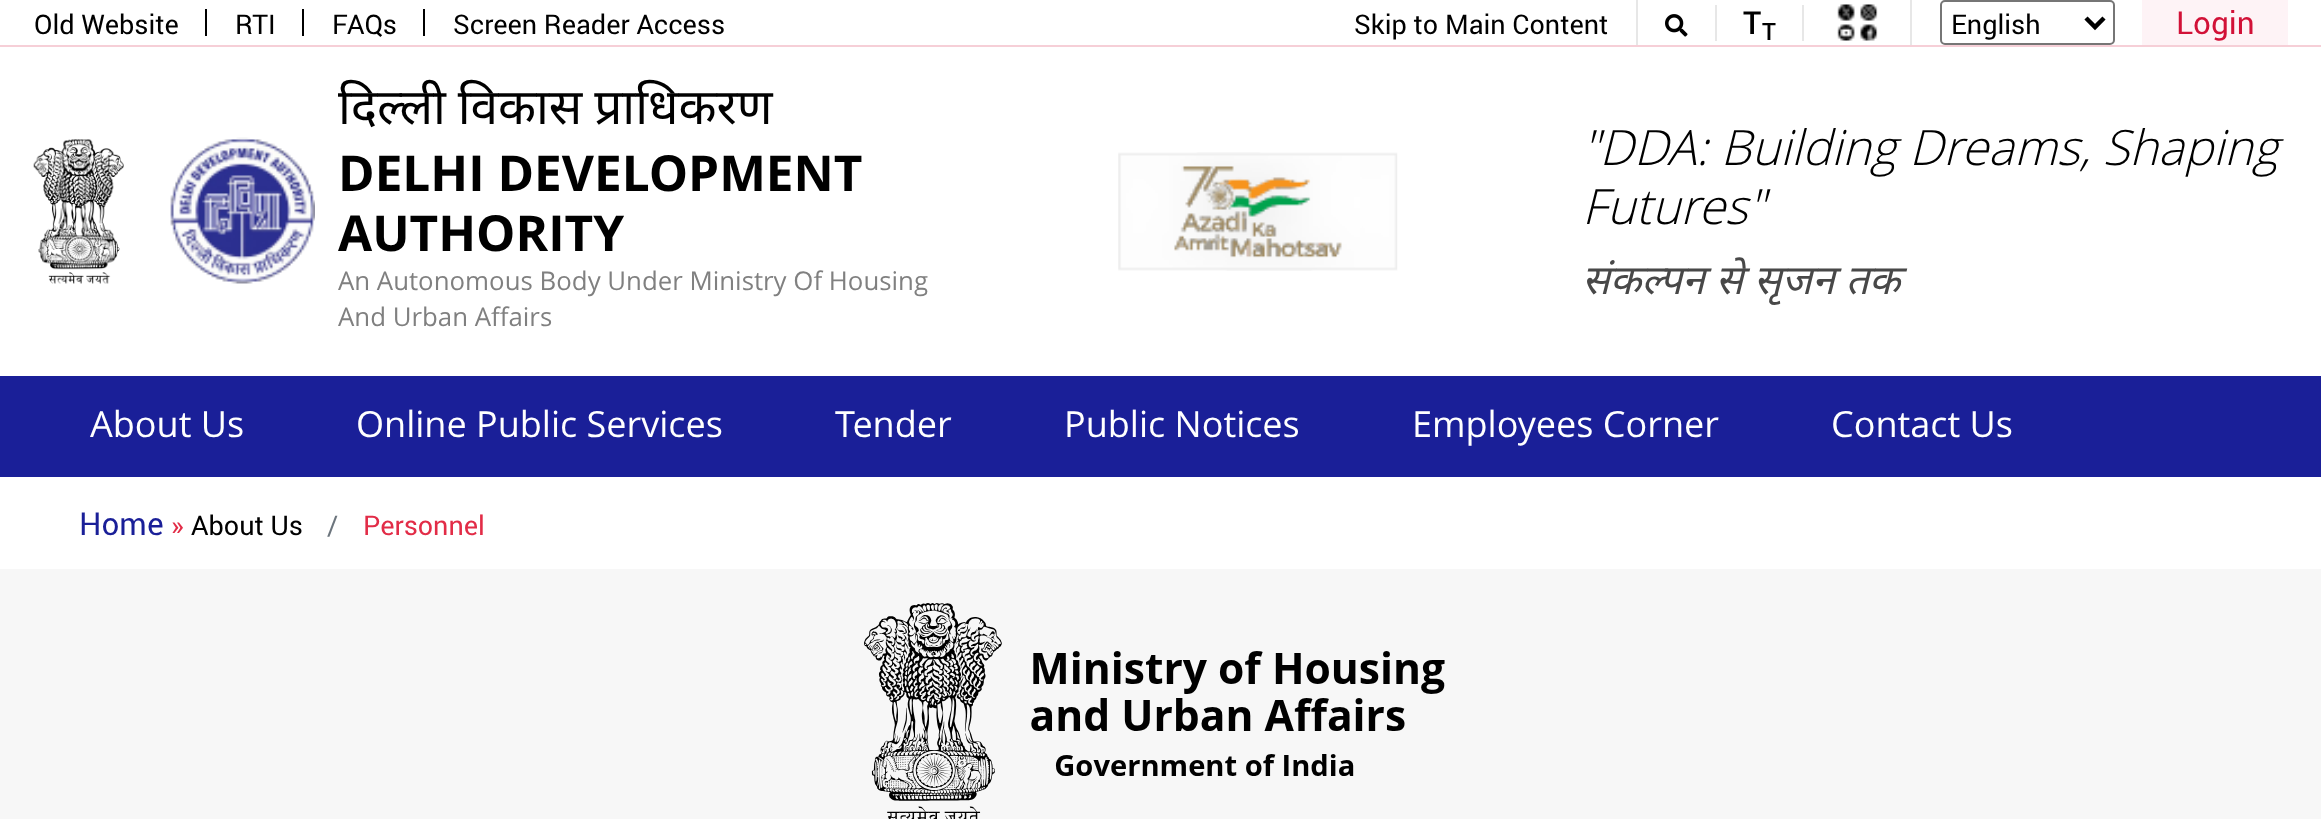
<!DOCTYPE html>
<meta charset="utf-8">
<style>body { margin: 0 } canvas { display: block }</style>
<canvas id="canvas" width="2321" height="819"></canvas>
<script type="module">
  const canvas = document.getElementById("canvas");
  const g = canvas.getContext("2d");
  g.miterLimit = 4;
  g.fontKerning = "normal";
  function drawText(s, x, y, [font, color]) {
    g.font = font;
    g.fillStyle = color;
    g.fillText(s, x, y);
  }
  function fillBox(x, y, w, h, color) {
    g.fillStyle = color;
    g.fillRect(x, y, w, h);
  }
  async function drawPicture(src, x, y, w, h) {
    const img = new Image();
    img.src = src;
    await img.decode();
    g.drawImage(img, x, y, w, h);
  }

  const s1 = ["27px Roboto", "#000000"];
  const s2 = ["500 31.5px Roboto", "#000000"];
  const s3 = ["500 24px Roboto", "#000000"];
  const s4 = ["31.5px Roboto", "#D21137"];
  const s5 = ["49.5px Noto Sans", "#000000"];
  const s6 = ["bold 49.5px Open Sans", "#000000"];
  const s7 = ["25.8px Open Sans", "#808080"];
  const s8 = ["italic 300 48.75px Open Sans", "#000000"];
  const s9 = ["italic 41px Noto Sans", "#484848"];
  const s10 = ["36px Open Sans", "#FFFFFF"];
  const s11 = ["31.5px Roboto", "#1A1F98"];
  const s12 = ["27px Roboto", "#E22C47"];
  const s13 = ["27px Roboto", "#6C757D"];

  fillBox(0, 0, 2321, 819, "#FFFFFF");
  fillBox(0, 45, 2321, 2, "#F6CFD7");
  fillBox(205, 9, 2, 27, "#000000");
  drawText("Old Website", 34, 34, s1);
  fillBox(302, 9, 2, 27, "#000000");
  drawText("RTI", 235, 34, s1);
  fillBox(423, 9, 2, 27, "#000000");
  drawText("FAQs", 332, 34, s1);
  drawText("Screen Reader Access", 453, 34, s1);
  fillBox(1636, 0, 2, 45, "#E7E7E7");
  drawText("Skip to Main Content", 1354, 34, s1);
  fillBox(1715, 5, 2, 36, "#E7E7E7");
  await drawPicture("pic1.png", 1665, 14, 23, 23);
  fillBox(1802, 5, 2, 36, "#E7E7E7");
  drawText("T", 1743, 34, s2);
  drawText("T", 1762, 40, s3);
  fillBox(1910, 0, 2, 45, "#E7E7E7");
  await drawPicture("pic2.png", 1837, 4, 41, 37);
  g.beginPath();
  g.roundRect(1941, 1, 173, 43, 4);
  g.strokeStyle = "#767676";
  g.lineWidth = 2;
  g.stroke();
  g.beginPath();
  g.moveTo(2086, 18);
  g.lineTo(2095, 27);
  g.lineTo(2104, 18);
  g.strokeStyle = "#000000";
  g.lineWidth = 4.5;
  g.stroke();
  drawText("English", 1951, 34, s1);
  fillBox(2142, 0, 146, 45, "#FEF3F6");
  drawText("Login", 2176, 34, s4);
  await drawPicture("pic3.png", 33, 139, 91, 145);
  await drawPicture("pic4.png", 170, 137, 145, 147);
  g.wordSpacing = "-1px";
  drawText("दिल्ली विकास प्राधिकरण", 338, 124, s5);
  g.wordSpacing = "0px";
  drawText("DELHI DEVELOPMENT", 338, 191, s6);
  drawText("AUTHORITY", 338, 251, s6);
  drawText("An Autonomous Body Under Ministry Of Housing", 338, 290, s7);
  drawText("And Urban Affairs", 338, 326, s7);
  await drawPicture("pic5.png", 1118, 152, 280, 119);
  drawText("\"DDA: Building Dreams, Shaping", 1582, 165, s8);
  drawText("Futures\"", 1582, 224, s8);
  drawText("संकल्पन से सृजन तक", 1582, 294, s9);
  fillBox(0, 376, 2321, 101, "#1A1F98");
  drawText("About Us", 90, 437, s10);
  drawText("Online Public Services", 356, 437, s10);
  drawText("Tender", 835, 437, s10);
  drawText("Public Notices", 1064, 437, s10);
  drawText("Employees Corner", 1412, 437, s10);
  drawText("Contact Us", 1831, 437, s10);
  drawText("Home", 79, 535, s11);
  drawText("»", 171, 535, s12);
  drawText("About Us", 191, 535, s1);
  drawText("/", 327, 535, s13);
  drawText("Personnel", 363, 535, s12);
  fillBox(0, 569, 2321, 250, "#F7F7F7");
  await drawPicture("pic6.png", 864, 603, 581, 216);
</script>
